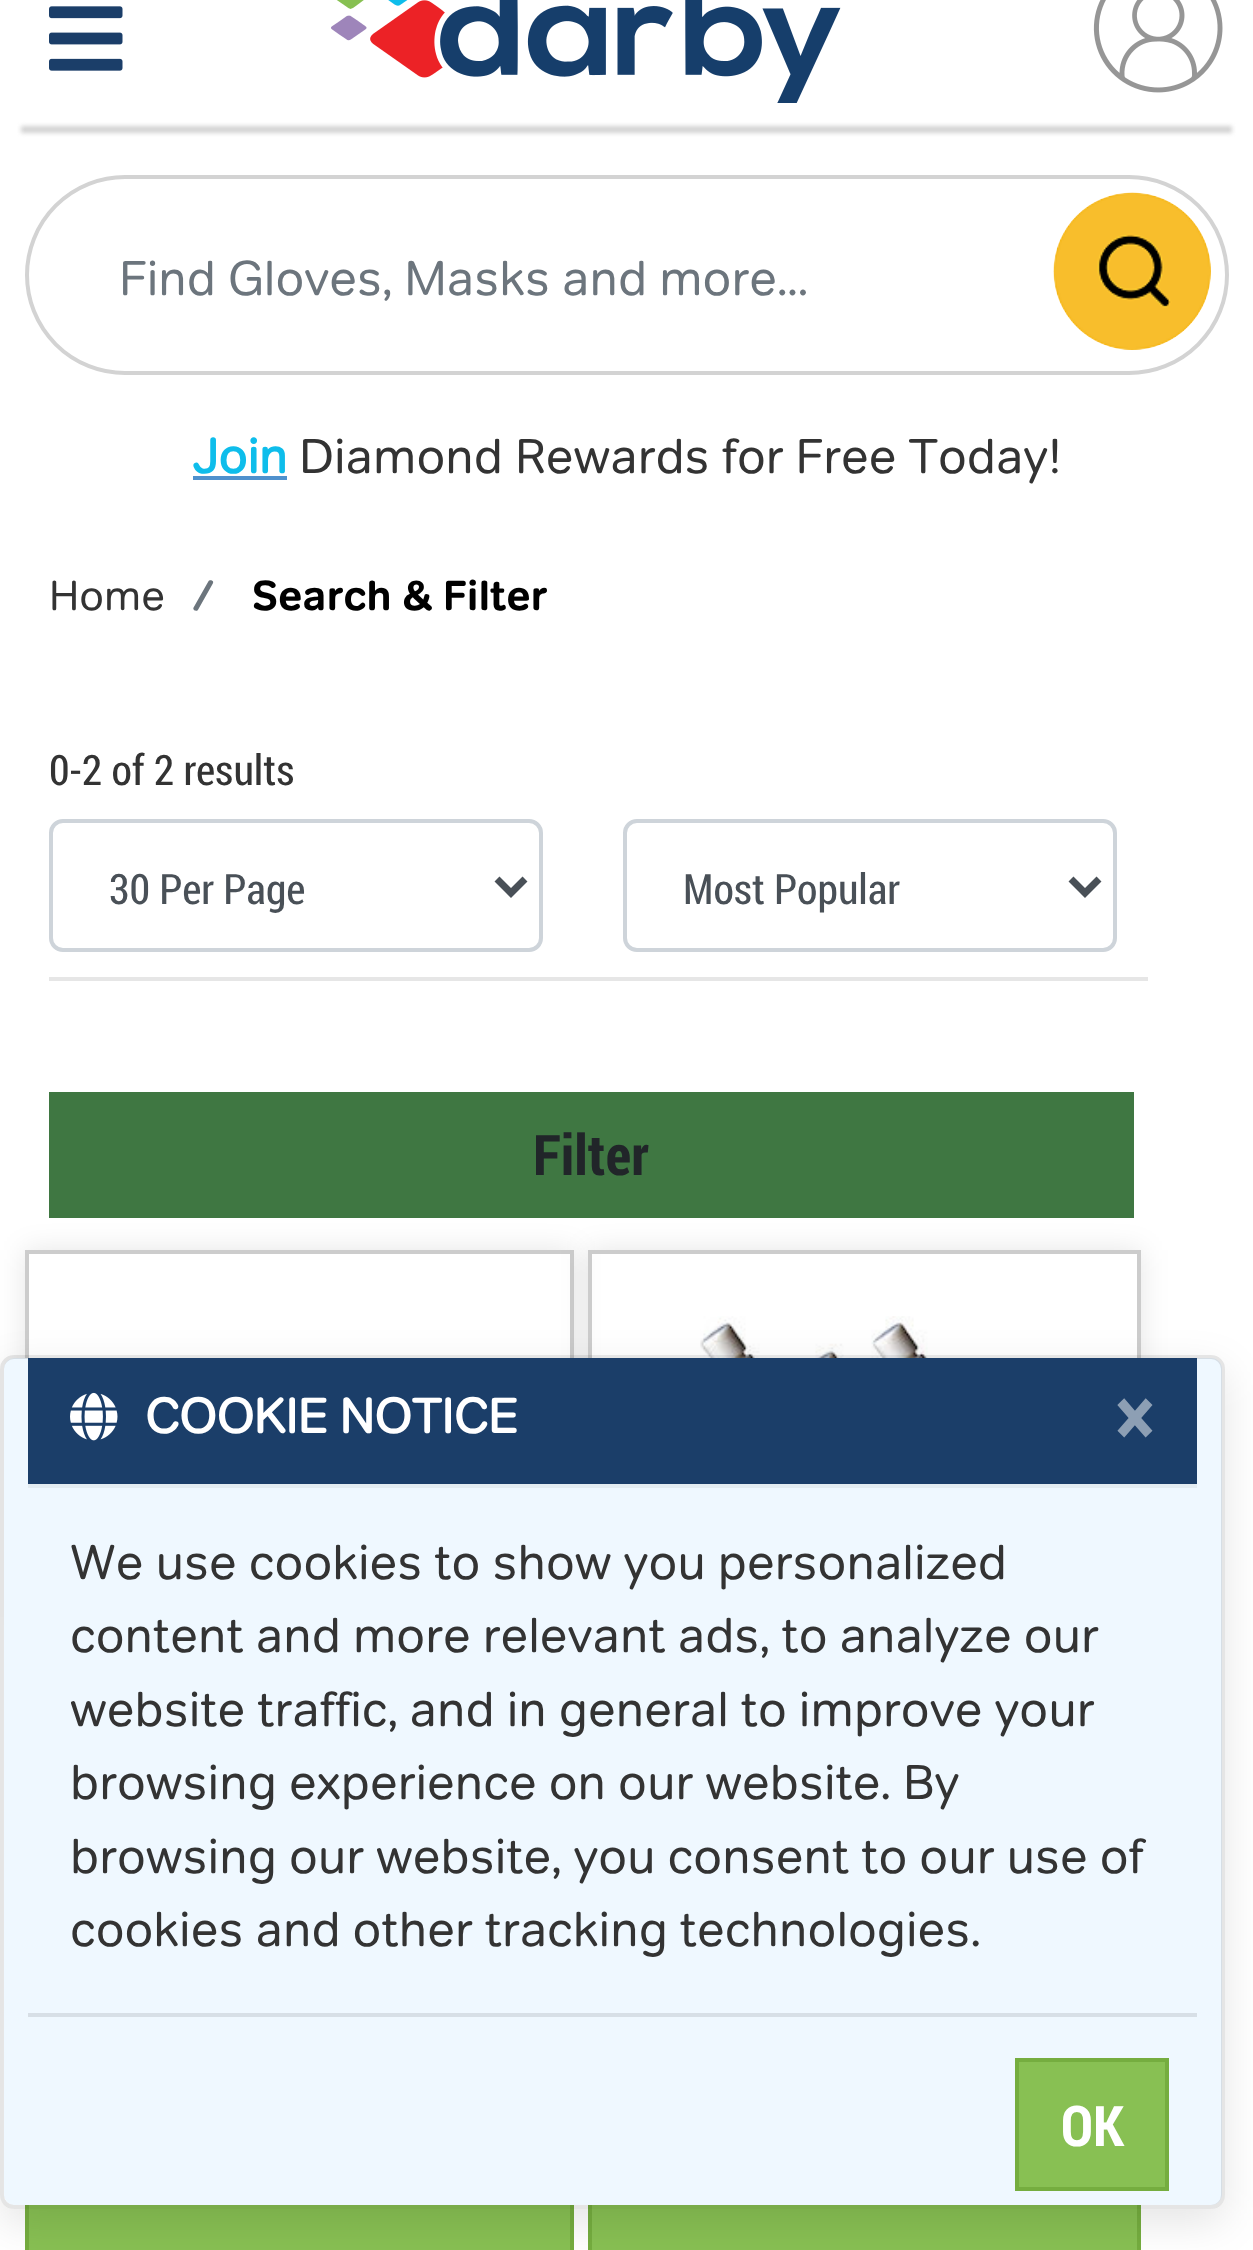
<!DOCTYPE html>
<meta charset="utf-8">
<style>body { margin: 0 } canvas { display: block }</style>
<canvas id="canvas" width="1253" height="2250"></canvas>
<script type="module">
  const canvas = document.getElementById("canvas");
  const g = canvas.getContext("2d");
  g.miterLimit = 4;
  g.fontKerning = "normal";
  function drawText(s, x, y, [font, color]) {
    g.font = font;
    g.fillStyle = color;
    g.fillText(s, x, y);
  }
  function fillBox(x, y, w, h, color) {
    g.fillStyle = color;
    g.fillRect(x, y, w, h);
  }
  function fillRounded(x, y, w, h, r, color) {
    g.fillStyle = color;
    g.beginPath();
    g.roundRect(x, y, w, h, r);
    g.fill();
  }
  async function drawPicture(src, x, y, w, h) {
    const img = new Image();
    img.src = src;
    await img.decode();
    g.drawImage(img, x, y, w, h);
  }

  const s1 = ["49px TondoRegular", "#6C757D"];
  const s2 = ["bold 49px TondoRegular", "#0EBDEB"];
  const s3 = ["49px TondoRegular", "#333333"];
  const s4 = ["42px TondoRegular", "#333333"];
  const s5 = ["42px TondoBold", "#6C757D"];
  const s6 = ["42px TondoBold", "#000000"];
  const s7 = ["42px Roboto Condensed", "#333333"];
  const s8 = ["42px Roboto Condensed", "#495057"];
  const s9 = ["bold 56px Roboto Condensed", "#212529"];
  const s10 = ["bold 49px TondoRegular", "#FFFFFF"];
  const s11 = ["bold 84px Roboto Condensed", "#8D9FB4"];
  const s12 = ["bold 56px Roboto Condensed", "#FFFFFF"];

  fillBox(0, 0, 1253, 2250, "#FFFFFF");
  await drawPicture("pic1.png", 49, 6, 74, 65);
  await drawPicture("pic2.png", 331, 0, 510, 103);
  await drawPicture("pic3.png", 1093, 0, 130, 93);
  g.fillStyle = "#D3D3D3";
  g.filter = "blur(2px)";
  g.beginPath();
  g.rect(21, 126, 1211, 7);
  g.fill();
  g.filter = "none";
  g.beginPath();
  g.roundRect(27, 177, 1200, 196, 98);
  g.strokeStyle = "#D3D3D3";
  g.lineWidth = 4;
  g.stroke();
  drawText("Find Gloves, Masks and more...", 119, 295, s1);
  await drawPicture("pic4.png", 1053, 192, 158, 158);
  drawText("Join", 192, 473, s2);
  fillBox(193, 476, 94, 4, "#4F91CD");
  drawText("Diamond Rewards for Free Today!", 299, 473, s3);
  drawText("Home", 49, 610, s4);
  drawText("/", 193, 610, s5);
  drawText("Search & Filter", 252, 610, s6);
  drawText("0-2 of 2 results", 49, 785, s7);
  g.beginPath();
  g.roundRect(51, 821, 490, 129, 12);
  g.strokeStyle = "#CED4DA";
  g.stroke();
  g.beginPath();
  g.moveTo(497, 879);
  g.lineTo(511, 893);
  g.lineTo(525, 879);
  g.strokeStyle = "#495057";
  g.lineWidth = 7;
  g.stroke();
  drawText("30 Per Page", 109, 904, s8);
  g.beginPath();
  g.roundRect(625, 821, 490, 129, 12);
  g.strokeStyle = "#CED4DA";
  g.lineWidth = 4;
  g.stroke();
  g.beginPath();
  g.moveTo(1071, 879);
  g.lineTo(1085, 893);
  g.lineTo(1099, 879);
  g.strokeStyle = "#495057";
  g.lineWidth = 7;
  g.stroke();
  drawText("Most Popular", 683, 904, s8);
  fillBox(49, 977, 1099, 4, "#E6E6E6");
  fillBox(49, 1092, 1085, 126, "#3F7742");
  drawText("Filter", 533, 1175, s9);
  g.save();
  g.beginPath();
  g.moveTo(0, 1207);
  g.lineTo(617, 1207);
  g.lineTo(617, 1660);
  g.lineTo(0, 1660);
  g.closePath();
  g.moveTo(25, 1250);
  g.lineTo(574, 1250);
  g.lineTo(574, 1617);
  g.lineTo(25, 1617);
  g.closePath();
  g.clip("evenodd");
  g.fillStyle = "rgba(0, 0, 0, 0.1)";
  g.filter = "blur(14px)";
  g.beginPath();
  g.rect(25, 1250, 549, 367);
  g.fill();
  g.filter = "none";
  g.restore();
  g.strokeStyle = "#CCCCCC";
  g.lineWidth = 4;
  g.strokeRect(27, 1252, 545, 363);
  fillBox(29, 2205, 541, 45, "#88C053");
  g.strokeStyle = "#75AD3F";
  g.strokeRect(27, 2130, 545, 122);
  g.save();
  g.beginPath();
  g.moveTo(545, 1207);
  g.lineTo(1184, 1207);
  g.lineTo(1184, 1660);
  g.lineTo(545, 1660);
  g.closePath();
  g.moveTo(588, 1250);
  g.lineTo(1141, 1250);
  g.lineTo(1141, 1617);
  g.lineTo(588, 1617);
  g.closePath();
  g.clip("evenodd");
  g.fillStyle = "rgba(0, 0, 0, 0.1)";
  g.filter = "blur(14px)";
  g.beginPath();
  g.rect(588, 1250, 553, 367);
  g.fill();
  g.filter = "none";
  g.restore();
  g.strokeStyle = "#CCCCCC";
  g.strokeRect(590, 1252, 549, 363);
  await drawPicture("pic5.png", 700, 1316, 339, 42);
  fillBox(592, 2205, 545, 45, "#88C053");
  g.strokeStyle = "#75AD3F";
  g.strokeRect(590, 2130, 549, 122);
  g.save();
  g.beginPath();
  g.moveTo(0, 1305);
  g.lineTo(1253, 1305);
  g.lineTo(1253, 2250);
  g.lineTo(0, 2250);
  g.closePath();
  g.moveTo(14, 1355);
  g.lineTo(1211, 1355);
  g.bezierCurveTo(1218.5, 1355, 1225, 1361.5, 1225, 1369);
  g.lineTo(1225, 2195);
  g.bezierCurveTo(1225, 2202.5, 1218.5, 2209, 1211, 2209);
  g.lineTo(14, 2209);
  g.bezierCurveTo(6.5, 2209, 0, 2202.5, 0, 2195);
  g.lineTo(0, 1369);
  g.bezierCurveTo(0, 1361.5, 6.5, 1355, 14, 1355);
  g.closePath();
  g.clip("evenodd");
  g.fillStyle = "rgba(0, 0, 0, 0.1)";
  g.filter = "blur(21px)";
  g.beginPath();
  g.roundRect(0, 1369, 1225, 854, 14);
  g.fill();
  g.filter = "none";
  g.restore();
  fillRounded(4, 1358, 1218, 847, 11, "#EFF8FF");
  g.beginPath();
  g.roundRect(2, 1357, 1221, 850, 12);
  g.strokeStyle = "rgba(0, 0, 0, 0.1)";
  g.stroke();
  fillBox(28, 1358, 1169, 126, "#1B3E69");
  fillBox(28, 1484, 1169, 4, "#E3ECF2");
  await drawPicture("pic6.png", 70, 1392, 48, 49);
  drawText("COOKIE NOTICE", 145, 1433, s10);
  drawText("×", 1115, 1446, s11);
  drawText("We use cookies to show you personalized", 70, 1579, s3);
  drawText("content and more relevant ads, to analyze our", 70, 1652, s3);
  drawText("website traffic, and in general to improve your", 70, 1726, s3);
  drawText("browsing experience on our website. By", 70, 1799, s3);
  drawText("browsing our website, you consent to our use of", 70, 1873, s3);
  drawText("cookies and other tracking technologies.", 70, 1946, s3);
  fillBox(28, 2013, 1169, 4, "#D7DFE6");
  g.fillStyle = "#88C053";
  g.beginPath();
  g.rect(1017, 2060, 150, 129);
  g.fill();
  g.strokeStyle = "#75AD3F";
  g.stroke();
  drawText("OK", 1061, 2146, s12);
</script>
